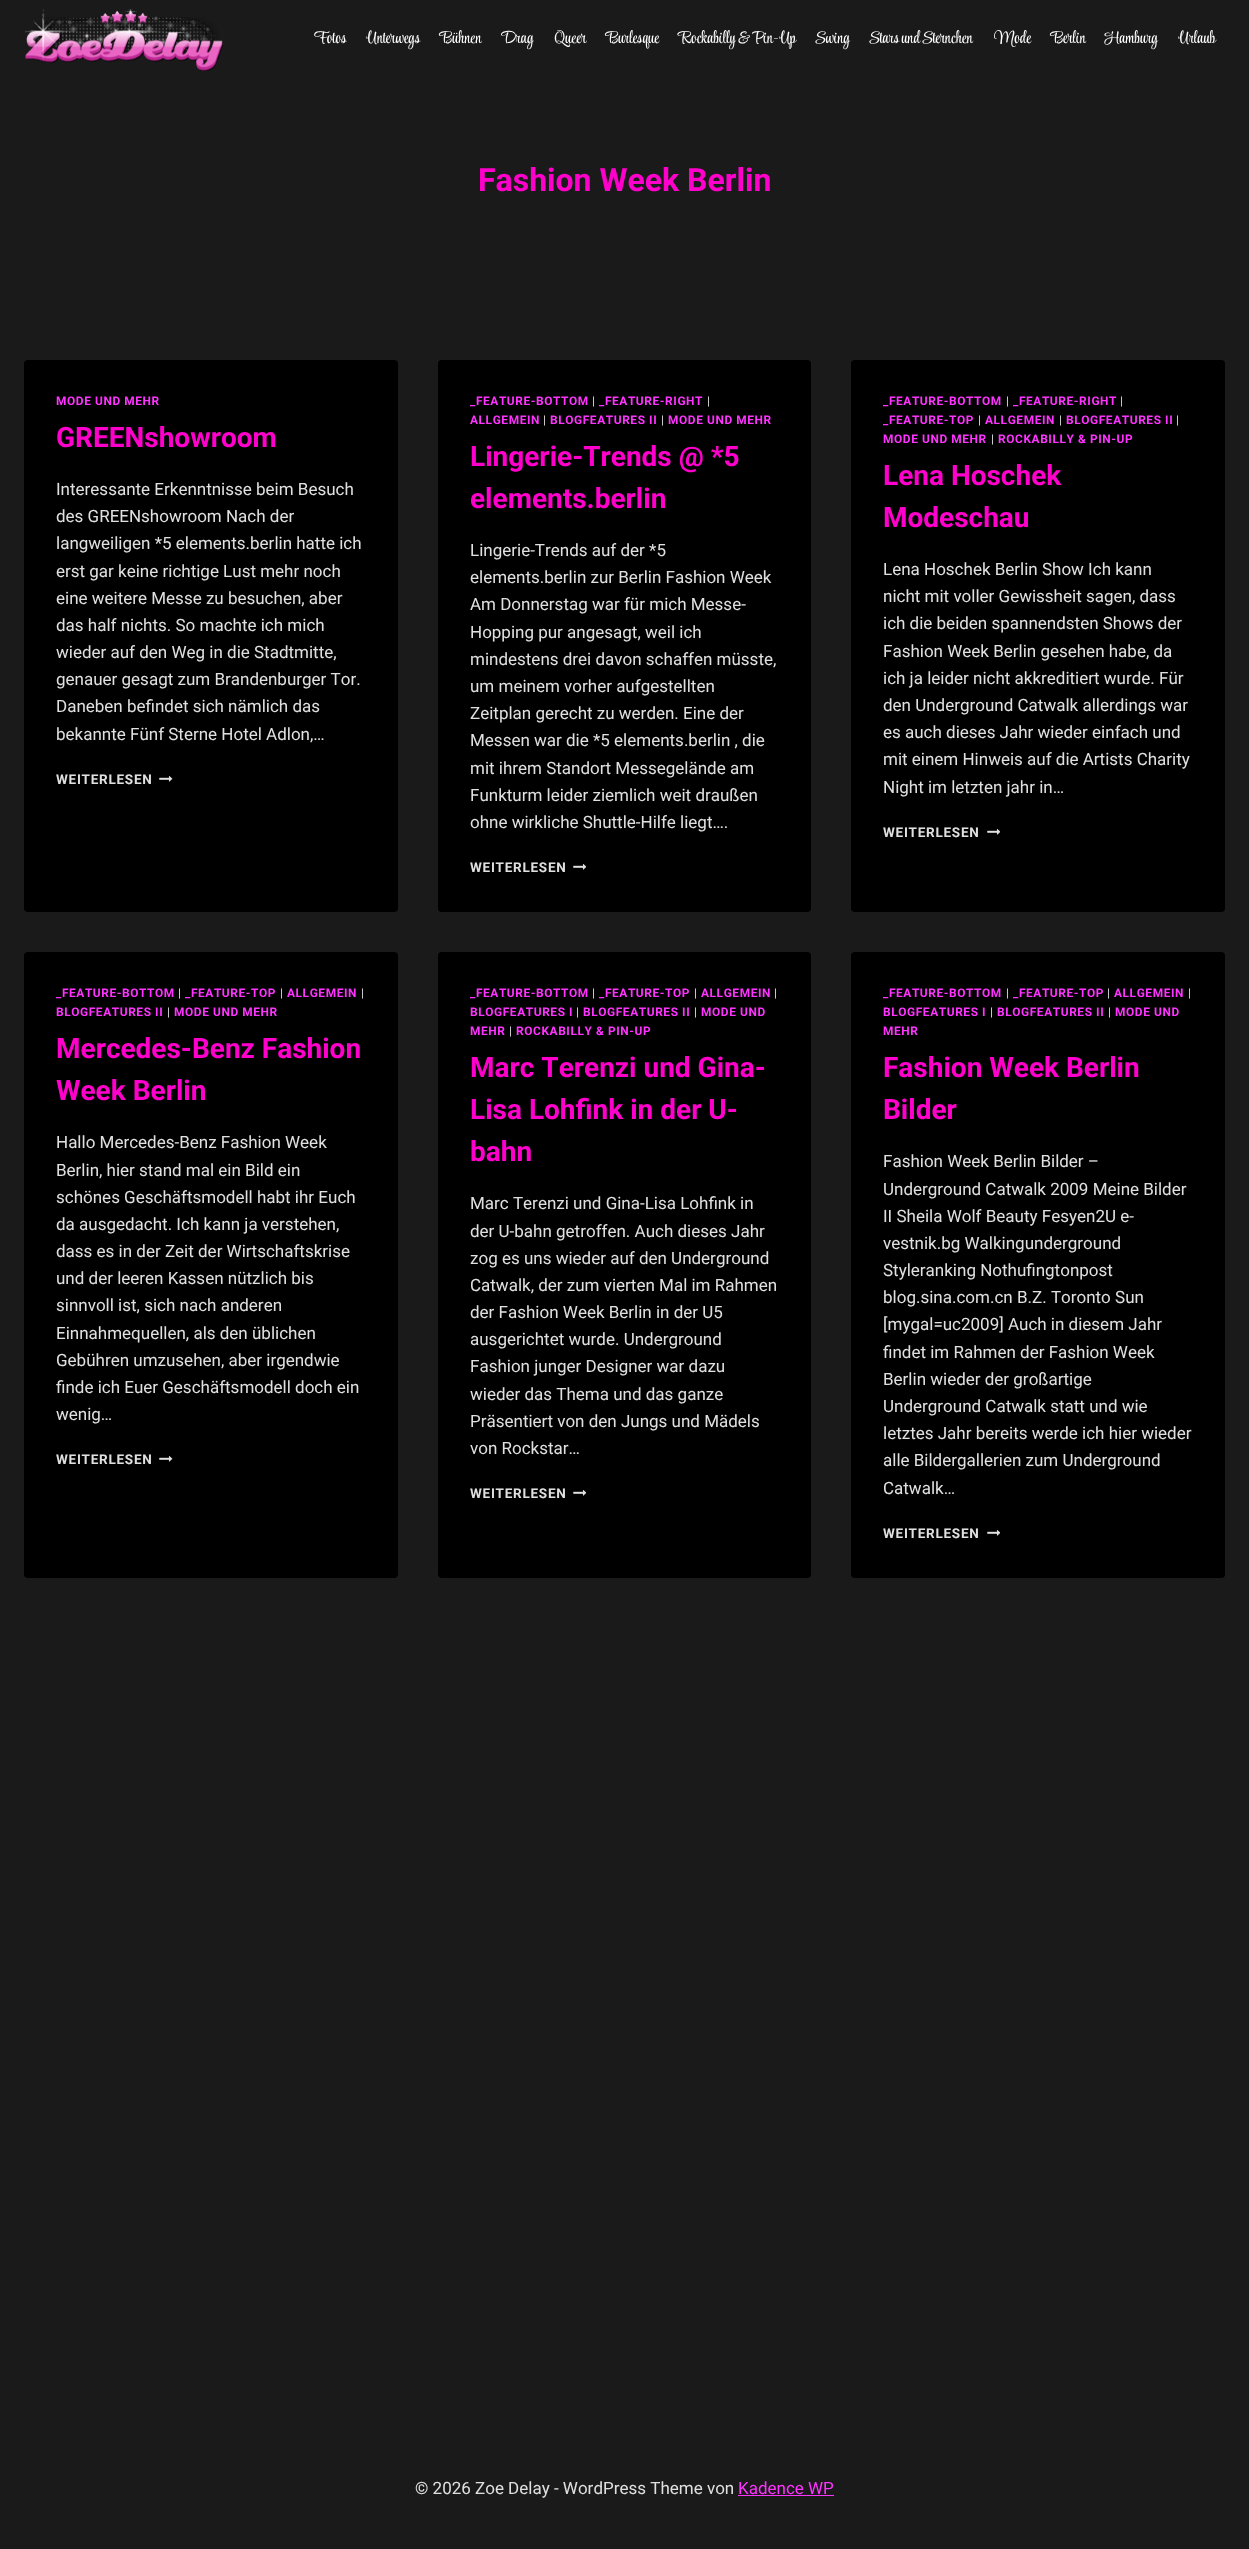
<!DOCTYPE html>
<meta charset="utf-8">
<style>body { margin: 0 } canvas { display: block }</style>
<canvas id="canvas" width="1249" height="2549"></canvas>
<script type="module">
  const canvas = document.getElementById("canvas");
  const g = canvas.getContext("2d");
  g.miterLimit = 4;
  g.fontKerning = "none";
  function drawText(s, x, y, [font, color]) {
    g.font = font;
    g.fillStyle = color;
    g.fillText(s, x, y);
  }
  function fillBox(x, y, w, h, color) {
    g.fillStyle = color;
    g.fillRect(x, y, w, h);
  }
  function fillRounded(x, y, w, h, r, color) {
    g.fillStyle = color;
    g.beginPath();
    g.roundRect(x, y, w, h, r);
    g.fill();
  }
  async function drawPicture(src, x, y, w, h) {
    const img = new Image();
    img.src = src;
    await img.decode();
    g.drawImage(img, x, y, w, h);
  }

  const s1 = ["17px Style Script", "#FFFFFF"];
  const s2 = ["bold 32px Roboto", "#FF00CC"];
  const s3 = ["bold 11.9px Roboto", "#FF33FF"];
  const s4 = ["bold 28px Roboto", "#FF00CC"];
  const s5 = ["17px Roboto", "#E0E0E0"];
  const s6 = ["bold 13.5px Roboto", "#E0E0E0"];
  const s7 = ["11.9px Roboto", "#E0E0E0"];
  const s8 = ["17px Roboto", "#FF33FF"];

  fillBox(0, 0, 1249, 2549, "#1A1A1A");
  await drawPicture("pic1.png", 25, 9, 198, 62);
  drawText("Fotos", 314, 43, s1);
  drawText("Unterwegs", 366, 43, s1);
  drawText("Bühnen", 440, 43, s1);
  drawText("Drag", 501, 43, s1);
  drawText("Queer", 554, 43, s1);
  drawText("Burlesque", 606, 43, s1);
  g.wordSpacing = "-1px";
  drawText("Rockabilly & Pin-Up", 679, 43, s1);
  g.wordSpacing = "0px";
  drawText("Swing", 815, 43, s1);
  g.wordSpacing = "-1px";
  drawText("Stars und Sternchen", 869, 43, s1);
  g.wordSpacing = "0px";
  drawText("Mode", 994, 43, s1);
  drawText("Berlin", 1051, 43, s1);
  drawText("Hamburg", 1105, 43, s1);
  drawText("Urlaub", 1178, 43, s1);
  drawText("Fashion Week Berlin", 478, 191, s2);
  fillRounded(24, 360, 374, 552, 4, "#000000");
  g.letterSpacing = "0.6px";
  drawText("MODE UND MEHR", 56, 405, s3);
  g.letterSpacing = "0px";
  drawText("GREENshowroom", 56, 447, s4);
  drawText("Interessante Erkenntnisse beim Besuch", 56, 495, s5);
  drawText("des GREENshowroom Nach der", 56, 522, s5);
  drawText("langweiligen *5 elements.berlin hatte ich", 56, 549, s5);
  drawText("erst gar keine richtige Lust mehr noch", 56, 577, s5);
  drawText("eine weitere Messe zu besuchen, aber", 56, 604, s5);
  drawText("das half nichts. So machte ich mich", 56, 631, s5);
  drawText("wieder auf den Weg in die Stadtmitte,", 56, 658, s5);
  drawText("genauer gesagt zum Brandenburger Tor.", 56, 685, s5);
  drawText("Daneben befindet sich nämlich das", 56, 712, s5);
  drawText("bekannte Fünf Sterne Hotel Adlon,…", 56, 740, s5);
  g.letterSpacing = "0.75px";
  drawText("WEITERLESEN", 56, 784, s6);
  await drawPicture("pic2.png", 159, 775, 14, 7);
  fillRounded(438, 360, 373, 552, 4, "#000000");
  g.letterSpacing = "0.6px";
  drawText("_FEATURE-BOTTOM", 470, 405, s3);
  drawText("|", 592, 405, s7);
  drawText("_FEATURE-RIGHT", 599, 405, s3);
  drawText("|", 707, 405, s7);
  drawText("ALLGEMEIN", 470, 424, s3);
  drawText("|", 543, 424, s7);
  drawText("BLOGFEATURES II", 550, 424, s3);
  drawText("|", 661, 424, s7);
  drawText("MODE UND MEHR", 668, 424, s3);
  g.letterSpacing = "0px";
  drawText("Lingerie-Trends @ *5", 470, 466, s4);
  drawText("elements.berlin", 470, 508, s4);
  drawText("Lingerie-Trends auf der *5", 470, 556, s5);
  drawText("elements.berlin zur Berlin Fashion Week", 470, 583, s5);
  drawText("Am Donnerstag war für mich Messe-", 470, 610, s5);
  drawText("Hopping pur angesagt, weil ich", 470, 638, s5);
  drawText("mindestens drei davon schaffen müsste,", 470, 665, s5);
  drawText("um meinem vorher aufgestellten", 470, 692, s5);
  drawText("Zeitplan gerecht zu werden. Eine der", 470, 719, s5);
  drawText("Messen war die *5 elements.berlin , die", 470, 746, s5);
  drawText("mit ihrem Standort Messegelände am", 470, 774, s5);
  drawText("Funkturm leider ziemlich weit draußen", 470, 801, s5);
  drawText("ohne wirkliche Shuttle-Hilfe liegt….", 470, 828, s5);
  g.letterSpacing = "0.75px";
  drawText("WEITERLESEN", 470, 872, s6);
  await drawPicture("pic3.png", 573, 863, 13, 7);
  fillRounded(851, 360, 374, 552, 4, "#000000");
  g.letterSpacing = "0.6px";
  drawText("_FEATURE-BOTTOM", 883, 405, s3);
  drawText("|", 1006, 405, s7);
  drawText("_FEATURE-RIGHT", 1013, 405, s3);
  drawText("|", 1120, 405, s7);
  drawText("_FEATURE-TOP", 883, 424, s3);
  drawText("|", 978, 424, s7);
  drawText("ALLGEMEIN", 985, 424, s3);
  drawText("|", 1059, 424, s7);
  drawText("BLOGFEATURES II", 1066, 424, s3);
  drawText("|", 1176, 424, s7);
  drawText("MODE UND MEHR", 883, 443, s3);
  drawText("|", 991, 443, s7);
  drawText("ROCKABILLY & PIN-UP", 998, 443, s3);
  g.letterSpacing = "0px";
  drawText("Lena Hoschek", 883, 485, s4);
  drawText("Modeschau", 883, 527, s4);
  drawText("Lena Hoschek Berlin Show Ich kann", 883, 575, s5);
  drawText("nicht mit voller Gewissheit sagen, dass", 883, 602, s5);
  drawText("ich die beiden spannendsten Shows der", 883, 629, s5);
  drawText("Fashion Week Berlin gesehen habe, da", 883, 657, s5);
  drawText("ich ja leider nicht akkreditiert wurde. Für", 883, 684, s5);
  drawText("den Underground Catwalk allerdings war", 883, 711, s5);
  drawText("es auch dieses Jahr wieder einfach und", 883, 738, s5);
  drawText("mit einem Hinweis auf die Artists Charity", 883, 765, s5);
  drawText("Night im letzten jahr in…", 883, 793, s5);
  g.letterSpacing = "0.75px";
  drawText("WEITERLESEN", 883, 837, s6);
  await drawPicture("pic3.png", 987, 828, 13, 7);
  fillRounded(24, 952, 374, 626, 4, "#000000");
  g.letterSpacing = "0.6px";
  drawText("_FEATURE-BOTTOM", 56, 997, s3);
  drawText("|", 178, 997, s7);
  drawText("_FEATURE-TOP", 185, 997, s3);
  drawText("|", 280, 997, s7);
  drawText("ALLGEMEIN", 287, 997, s3);
  drawText("|", 361, 997, s7);
  drawText("BLOGFEATURES II", 56, 1016, s3);
  drawText("|", 167, 1016, s7);
  drawText("MODE UND MEHR", 174, 1016, s3);
  g.letterSpacing = "0px";
  drawText("Mercedes-Benz Fashion", 56, 1058, s4);
  drawText("Week Berlin", 56, 1100, s4);
  drawText("Hallo Mercedes-Benz Fashion Week", 56, 1148, s5);
  drawText("Berlin, hier stand mal ein Bild ein", 56, 1176, s5);
  drawText("schönes Geschäftsmodell habt ihr Euch", 56, 1203, s5);
  drawText("da ausgedacht. Ich kann ja verstehen,", 56, 1230, s5);
  drawText("dass es in der Zeit der Wirtschaftskrise", 56, 1257, s5);
  drawText("und der leeren Kassen nützlich bis", 56, 1284, s5);
  drawText("sinnvoll ist, sich nach anderen", 56, 1311, s5);
  drawText("Einnahmequellen, als den üblichen", 56, 1339, s5);
  drawText("Gebühren umzusehen, aber irgendwie", 56, 1366, s5);
  drawText("finde ich Euer Geschäftsmodell doch ein", 56, 1393, s5);
  drawText("wenig…", 56, 1420, s5);
  g.letterSpacing = "0.75px";
  drawText("WEITERLESEN", 56, 1464, s6);
  await drawPicture("pic2.png", 159, 1455, 14, 7);
  fillRounded(438, 952, 373, 626, 4, "#000000");
  g.letterSpacing = "0.6px";
  drawText("_FEATURE-BOTTOM", 470, 997, s3);
  drawText("|", 592, 997, s7);
  drawText("_FEATURE-TOP", 599, 997, s3);
  drawText("|", 694, 997, s7);
  drawText("ALLGEMEIN", 701, 997, s3);
  drawText("|", 774, 997, s7);
  drawText("BLOGFEATURES I", 470, 1016, s3);
  drawText("|", 576, 1016, s7);
  drawText("BLOGFEATURES II", 583, 1016, s3);
  drawText("|", 694, 1016, s7);
  drawText("MODE UND", 701, 1016, s3);
  drawText("MEHR", 470, 1035, s3);
  drawText("|", 509, 1035, s7);
  drawText("ROCKABILLY & PIN-UP", 516, 1035, s3);
  g.letterSpacing = "0px";
  drawText("Marc Terenzi und Gina-", 470, 1077, s4);
  drawText("Lisa Lohfink in der U-", 470, 1119, s4);
  drawText("bahn", 470, 1161, s4);
  drawText("Marc Terenzi und Gina-Lisa Lohfink in", 470, 1209, s5);
  drawText("der U-bahn getroffen. Auch dieses Jahr", 470, 1237, s5);
  drawText("zog es uns wieder auf den Underground", 470, 1264, s5);
  drawText("Catwalk, der zum vierten Mal im Rahmen", 470, 1291, s5);
  drawText("der Fashion Week Berlin in der U5", 470, 1318, s5);
  drawText("ausgerichtet wurde. Underground", 470, 1345, s5);
  drawText("Fashion junger Designer war dazu", 470, 1372, s5);
  drawText("wieder das Thema und das ganze", 470, 1400, s5);
  drawText("Präsentiert von den Jungs und Mädels", 470, 1427, s5);
  drawText("von Rockstar…", 470, 1454, s5);
  g.letterSpacing = "0.75px";
  drawText("WEITERLESEN", 470, 1498, s6);
  await drawPicture("pic3.png", 573, 1489, 13, 7);
  fillRounded(851, 952, 374, 626, 4, "#000000");
  g.letterSpacing = "0.6px";
  drawText("_FEATURE-BOTTOM", 883, 997, s3);
  drawText("|", 1006, 997, s7);
  drawText("_FEATURE-TOP", 1013, 997, s3);
  drawText("|", 1107, 997, s7);
  drawText("ALLGEMEIN", 1114, 997, s3);
  drawText("|", 1188, 997, s7);
  drawText("BLOGFEATURES I", 883, 1016, s3);
  drawText("|", 990, 1016, s7);
  drawText("BLOGFEATURES II", 997, 1016, s3);
  drawText("|", 1108, 1016, s7);
  drawText("MODE UND", 1115, 1016, s3);
  drawText("MEHR", 883, 1035, s3);
  g.letterSpacing = "0px";
  drawText("Fashion Week Berlin", 883, 1077, s4);
  drawText("Bilder", 883, 1119, s4);
  drawText("Fashion Week Berlin Bilder –", 883, 1167, s5);
  drawText("Underground Catwalk 2009 Meine Bilder", 883, 1195, s5);
  drawText("II Sheila Wolf Beauty Fesyen2U e-", 883, 1222, s5);
  drawText("vestnik.bg Walkingunderground", 883, 1249, s5);
  drawText("Styleranking Nothufingtonpost", 883, 1276, s5);
  drawText("blog.sina.com.cn B.Z. Toronto Sun", 883, 1303, s5);
  drawText("[mygal=uc2009] Auch in diesem Jahr", 883, 1330, s5);
  drawText("findet im Rahmen der Fashion Week", 883, 1358, s5);
  drawText("Berlin wieder der großartige", 883, 1385, s5);
  drawText("Underground Catwalk statt und wie", 883, 1412, s5);
  drawText("letztes Jahr bereits werde ich hier wieder", 883, 1439, s5);
  drawText("alle Bildergallerien zum Underground", 883, 1466, s5);
  drawText("Catwalk…", 883, 1494, s5);
  g.letterSpacing = "0.75px";
  drawText("WEITERLESEN", 883, 1538, s6);
  await drawPicture("pic3.png", 987, 1529, 13, 7);
  g.letterSpacing = "0px";
  drawText("© 2026 Zoe Delay - WordPress Theme von", 415, 2494, s5);
  drawText("Kadence WP", 738, 2494, s8);
  fillBox(738, 2495, 96, 1, "#FF33FF");
</script>
